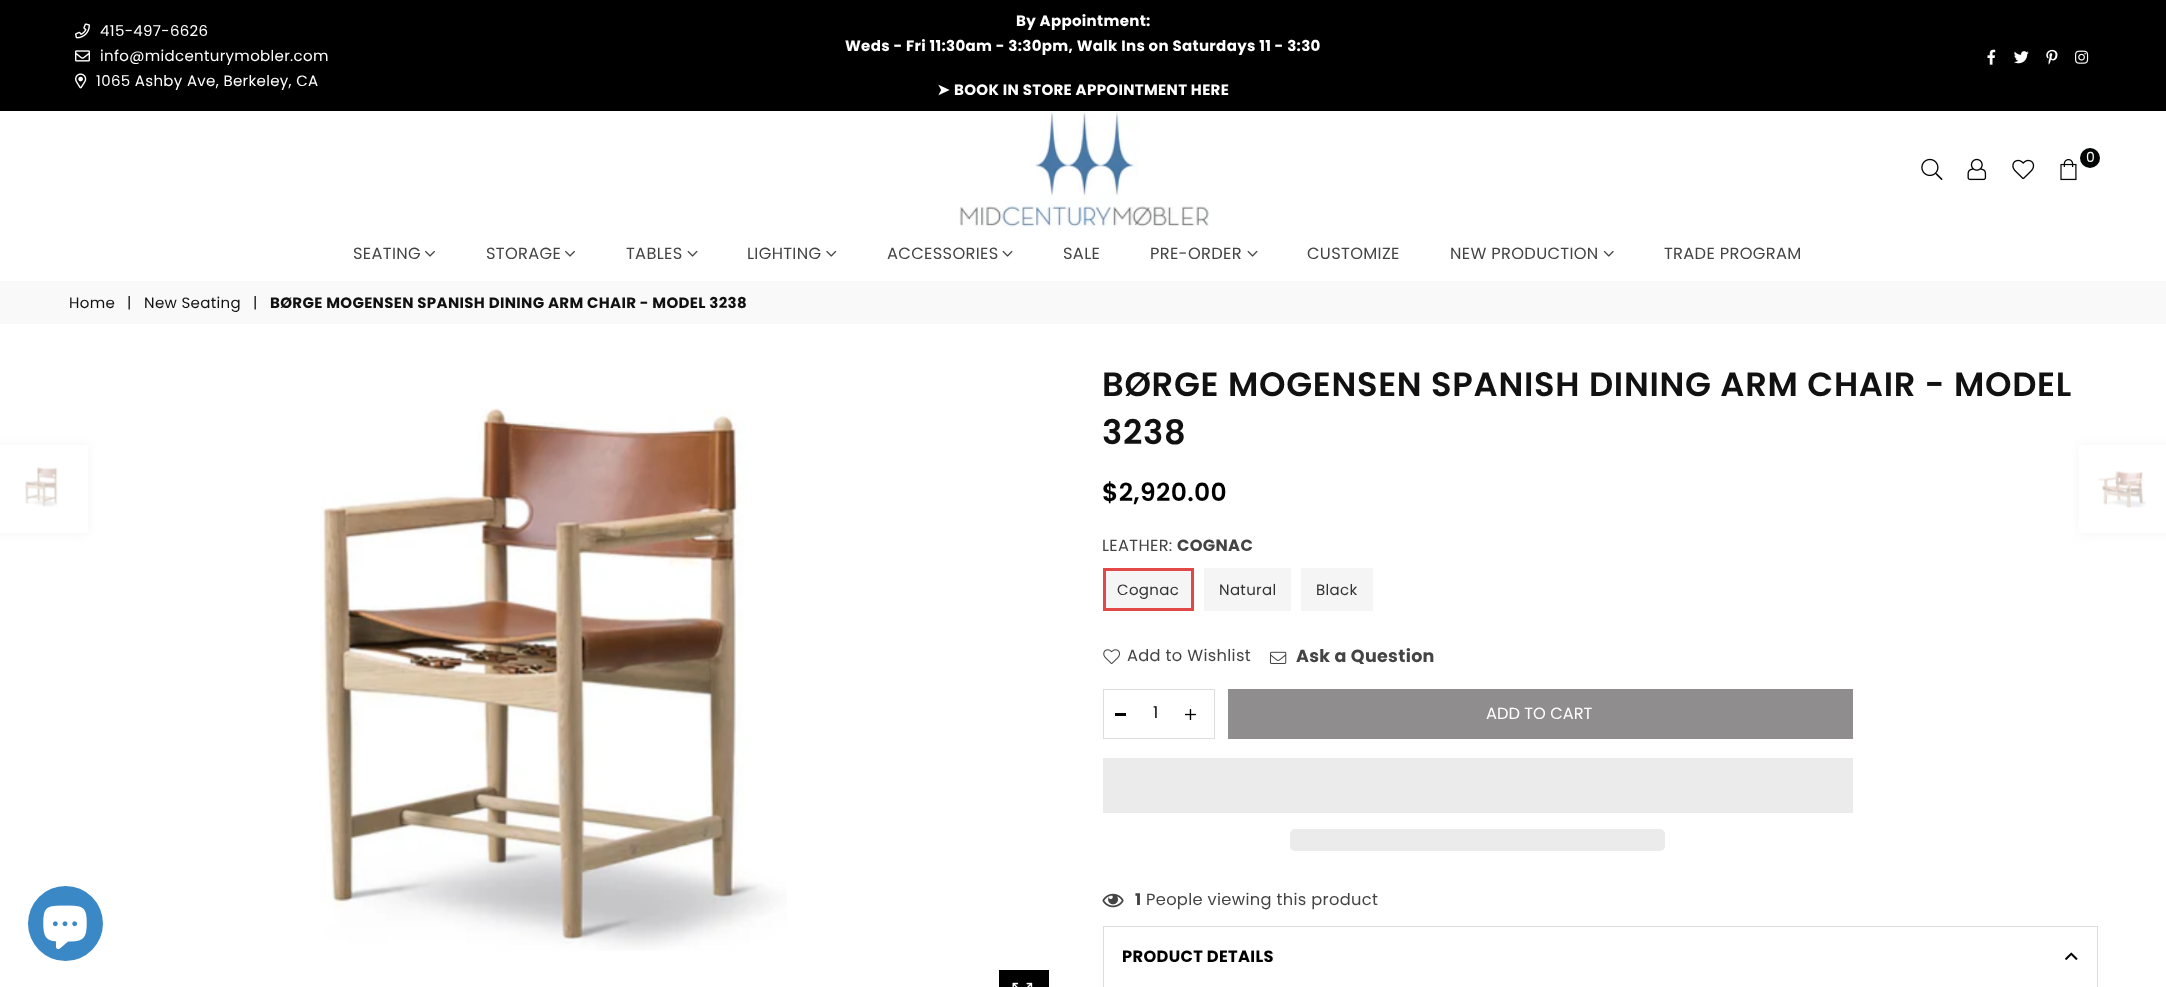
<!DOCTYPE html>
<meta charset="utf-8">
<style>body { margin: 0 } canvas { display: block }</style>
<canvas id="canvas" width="2166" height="987"></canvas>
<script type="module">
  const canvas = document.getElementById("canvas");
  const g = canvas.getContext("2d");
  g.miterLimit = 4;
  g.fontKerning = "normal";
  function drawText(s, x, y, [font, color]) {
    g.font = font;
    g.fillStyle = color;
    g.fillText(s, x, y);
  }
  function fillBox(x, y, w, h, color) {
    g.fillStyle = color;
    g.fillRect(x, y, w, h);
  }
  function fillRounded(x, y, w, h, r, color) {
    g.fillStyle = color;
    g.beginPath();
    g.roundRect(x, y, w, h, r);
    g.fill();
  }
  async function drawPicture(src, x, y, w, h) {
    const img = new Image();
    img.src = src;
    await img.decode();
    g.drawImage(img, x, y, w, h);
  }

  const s1 = ["15px Poppins", "#FFFFFF"];
  const s2 = ["bold 15px Poppins", "#FFFFFF"];
  const s3 = ["bold 15px DejaVu Sans", "#FFFFFF"];
  const s4 = ["14px Poppins", "#FFFFFF"];
  const s5 = ["16.25px Poppins", "#444444"];
  const s6 = ["15px Poppins", "#111111"];
  const s7 = ["bold 15px Poppins", "#111111"];
  const s8 = ["600 33.75px Poppins", "#111111"];
  const s9 = ["600 25px Poppins", "#000000"];
  const s10 = ["bold 16.25px Poppins", "#444444"];
  const s11 = ["15px Poppins", "#333333"];
  const s12 = ["bold 17.5px Poppins", "#444444"];
  const s13 = ["16.25px Poppins", "#000000"];
  const s14 = ["16.25px Poppins", "#FFFFFF"];
  const s15 = ["bold 16.25px Poppins", "#000000"];

  fillBox(0, 0, 2166, 987, "#FFFFFF");
  fillBox(0, 0, 2166, 111, "#000000");
  await drawPicture("pic1.png", 75, 23, 15, 16);
  g.letterSpacing = "0.33px";
  drawText("415-497-6626", 100, 36, s1);
  await drawPicture("pic2.png", 75, 50, 15, 12);
  drawText("info@midcenturymobler.com", 100, 61, s1);
  await drawPicture("pic3.png", 75, 73, 12, 16);
  drawText("1065 Ashby Ave, Berkeley, CA", 96, 86, s1);
  drawText("By Appointment:", 1016, 26, s2);
  drawText("Weds - Fri 11:30am - 3:30pm, Walk Ins on Saturdays 11 - 3:30", 845, 51, s2);
  drawText("➤", 937, 95, s3);
  drawText("BOOK IN STORE APPOINTMENT HERE", 954, 95, s2);
  await drawPicture("pic4.png", 1987, 49, 9, 16);
  await drawPicture("pic5.png", 2014, 51, 15, 13);
  await drawPicture("pic6.png", 2046, 49, 12, 16);
  await drawPicture("pic7.png", 2075, 50, 14, 14);
  await drawPicture("pic8.png", 959, 112, 250, 115);
  g.fillStyle = "#030505";
  g.beginPath();
  g.arc(2090, 158, 10, 0, Math.PI * 2);
  g.fill();
  drawText("0", 2086, 162, s4);
  await drawPicture("pic9.png", 2060, 159, 17, 22);
  await drawPicture("pic10.png", 1921, 158, 22, 22);
  await drawPicture("pic11.png", 1967, 158, 20, 23);
  await drawPicture("pic12.png", 2012, 159, 23, 21);
  drawText("SEATING", 353, 259, s5);
  await drawPicture("pic13.png", 425, 250, 10, 7);
  drawText("STORAGE", 486, 259, s5);
  await drawPicture("pic13.png", 565, 250, 10, 7);
  drawText("TABLES", 626, 259, s5);
  await drawPicture("pic14.png", 687, 250, 11, 7);
  drawText("LIGHTING", 747, 259, s5);
  await drawPicture("pic15.png", 826, 250, 11, 7);
  drawText("ACCESSORIES", 887, 259, s5);
  await drawPicture("pic14.png", 1002, 250, 11, 7);
  drawText("SALE", 1063, 259, s5);
  drawText("PRE-ORDER", 1150, 259, s5);
  await drawPicture("pic14.png", 1247, 250, 11, 7);
  drawText("CUSTOMIZE", 1307, 259, s5);
  drawText("NEW PRODUCTION", 1450, 259, s5);
  await drawPicture("pic16.png", 1603, 250, 11, 7);
  drawText("TRADE PROGRAM", 1664, 259, s5);
  g.fillStyle = "#3B88C6";
  g.beginPath();
  g.arc(65.5, 923.5, 37.5, 0, Math.PI * 2);
  g.fill();
  await drawPicture("pic17.png", 43, 905, 44, 45);
  fillBox(0, 281, 2166, 43, "#F9F9F9");
  drawText("Home", 69, 308, s6);
  drawText("|", 127, 308, s6);
  drawText("New Seating", 144, 308, s6);
  drawText("|", 253, 308, s6);
  drawText("BØRGE MOGENSEN SPANISH DINING ARM CHAIR - MODEL 3238", 270, 308, s7);
  g.fillStyle = "rgba(199, 199, 199, 0.2)";
  g.filter = "blur(6px)";
  g.beginPath();
  g.rect(-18, 445, 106, 88);
  g.fill();
  g.filter = "none";
  fillBox(0, 445, 88, 88, "#FFFFFF");
  await drawPicture("pic18.png", 25, 467, 33, 40);
  await drawPicture("pic19.png", 320, 408, 467, 543);
  fillBox(999, 970, 50, 17, "#000000");
  await drawPicture("pic20.png", 1012, 982, 21, 5);
  g.letterSpacing = "0.7px";
  drawText("BØRGE MOGENSEN SPANISH DINING ARM CHAIR - MODEL", 1102, 396, s8);
  drawText("3238", 1102, 444, s8);
  g.letterSpacing = "0.33px";
  drawText("$2,920.00", 1102, 501, s9);
  drawText("LEATHER:", 1102, 551, s5);
  drawText("COGNAC", 1177, 551, s10);
  g.fillStyle = "#F5F5F5";
  g.beginPath();
  g.rect(1104.5, 569.5, 88, 40);
  g.fill();
  g.strokeStyle = "#E34848";
  g.lineWidth = 3;
  g.stroke();
  drawText("Cognac", 1117, 595, s11);
  fillBox(1204, 568, 87, 43, "#F5F5F5");
  drawText("Natural", 1219, 595, s11);
  fillBox(1301, 568, 72, 43, "#F5F5F5");
  drawText("Black", 1316, 595, s11);
  await drawPicture("pic21.png", 1103, 649, 17, 15);
  drawText("Add to Wishlist", 1127, 661, s5);
  await drawPicture("pic22.png", 1270, 651, 17, 13);
  drawText("Ask a Question", 1296, 662, s12);
  g.strokeStyle = "#DDDDDD";
  g.lineWidth = 1;
  g.strokeRect(1103.5, 689.5, 111, 49);
  fillBox(1115, 713, 11, 3, "#000000");
  g.letterSpacing = "0px";
  drawText("1", 1153, 718, s13);
  await drawPicture("pic23.png", 1185, 709, 11, 11);
  fillBox(1228, 689, 625, 50, "#8F8D8D");
  drawText("ADD TO CART", 1486, 719, s14);
  fillBox(1103, 758, 750, 55, "#EBEBEB");
  fillRounded(1290, 829, 375, 22, 5, "#EBEBEB");
  await drawPicture("pic24.png", 1102, 893, 22, 15);
  g.letterSpacing = "0.33px";
  drawText("1", 1135, 905, s10);
  drawText("People viewing this product", 1146, 905, s5);
  g.strokeRect(1103.5, 926.5, 994, 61);
  drawText("PRODUCT DETAILS", 1122, 962, s15);
  await drawPicture("pic25.png", 2065, 952, 13, 8);
  g.fillStyle = "rgba(199, 199, 199, 0.2)";
  g.filter = "blur(6px)";
  g.beginPath();
  g.rect(2079, 445, 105, 88);
  g.fill();
  g.filter = "none";
  fillBox(2079, 445, 87, 88, "#FFFFFF");
  await drawPicture("pic26.png", 2098, 471, 48, 37);
</script>
